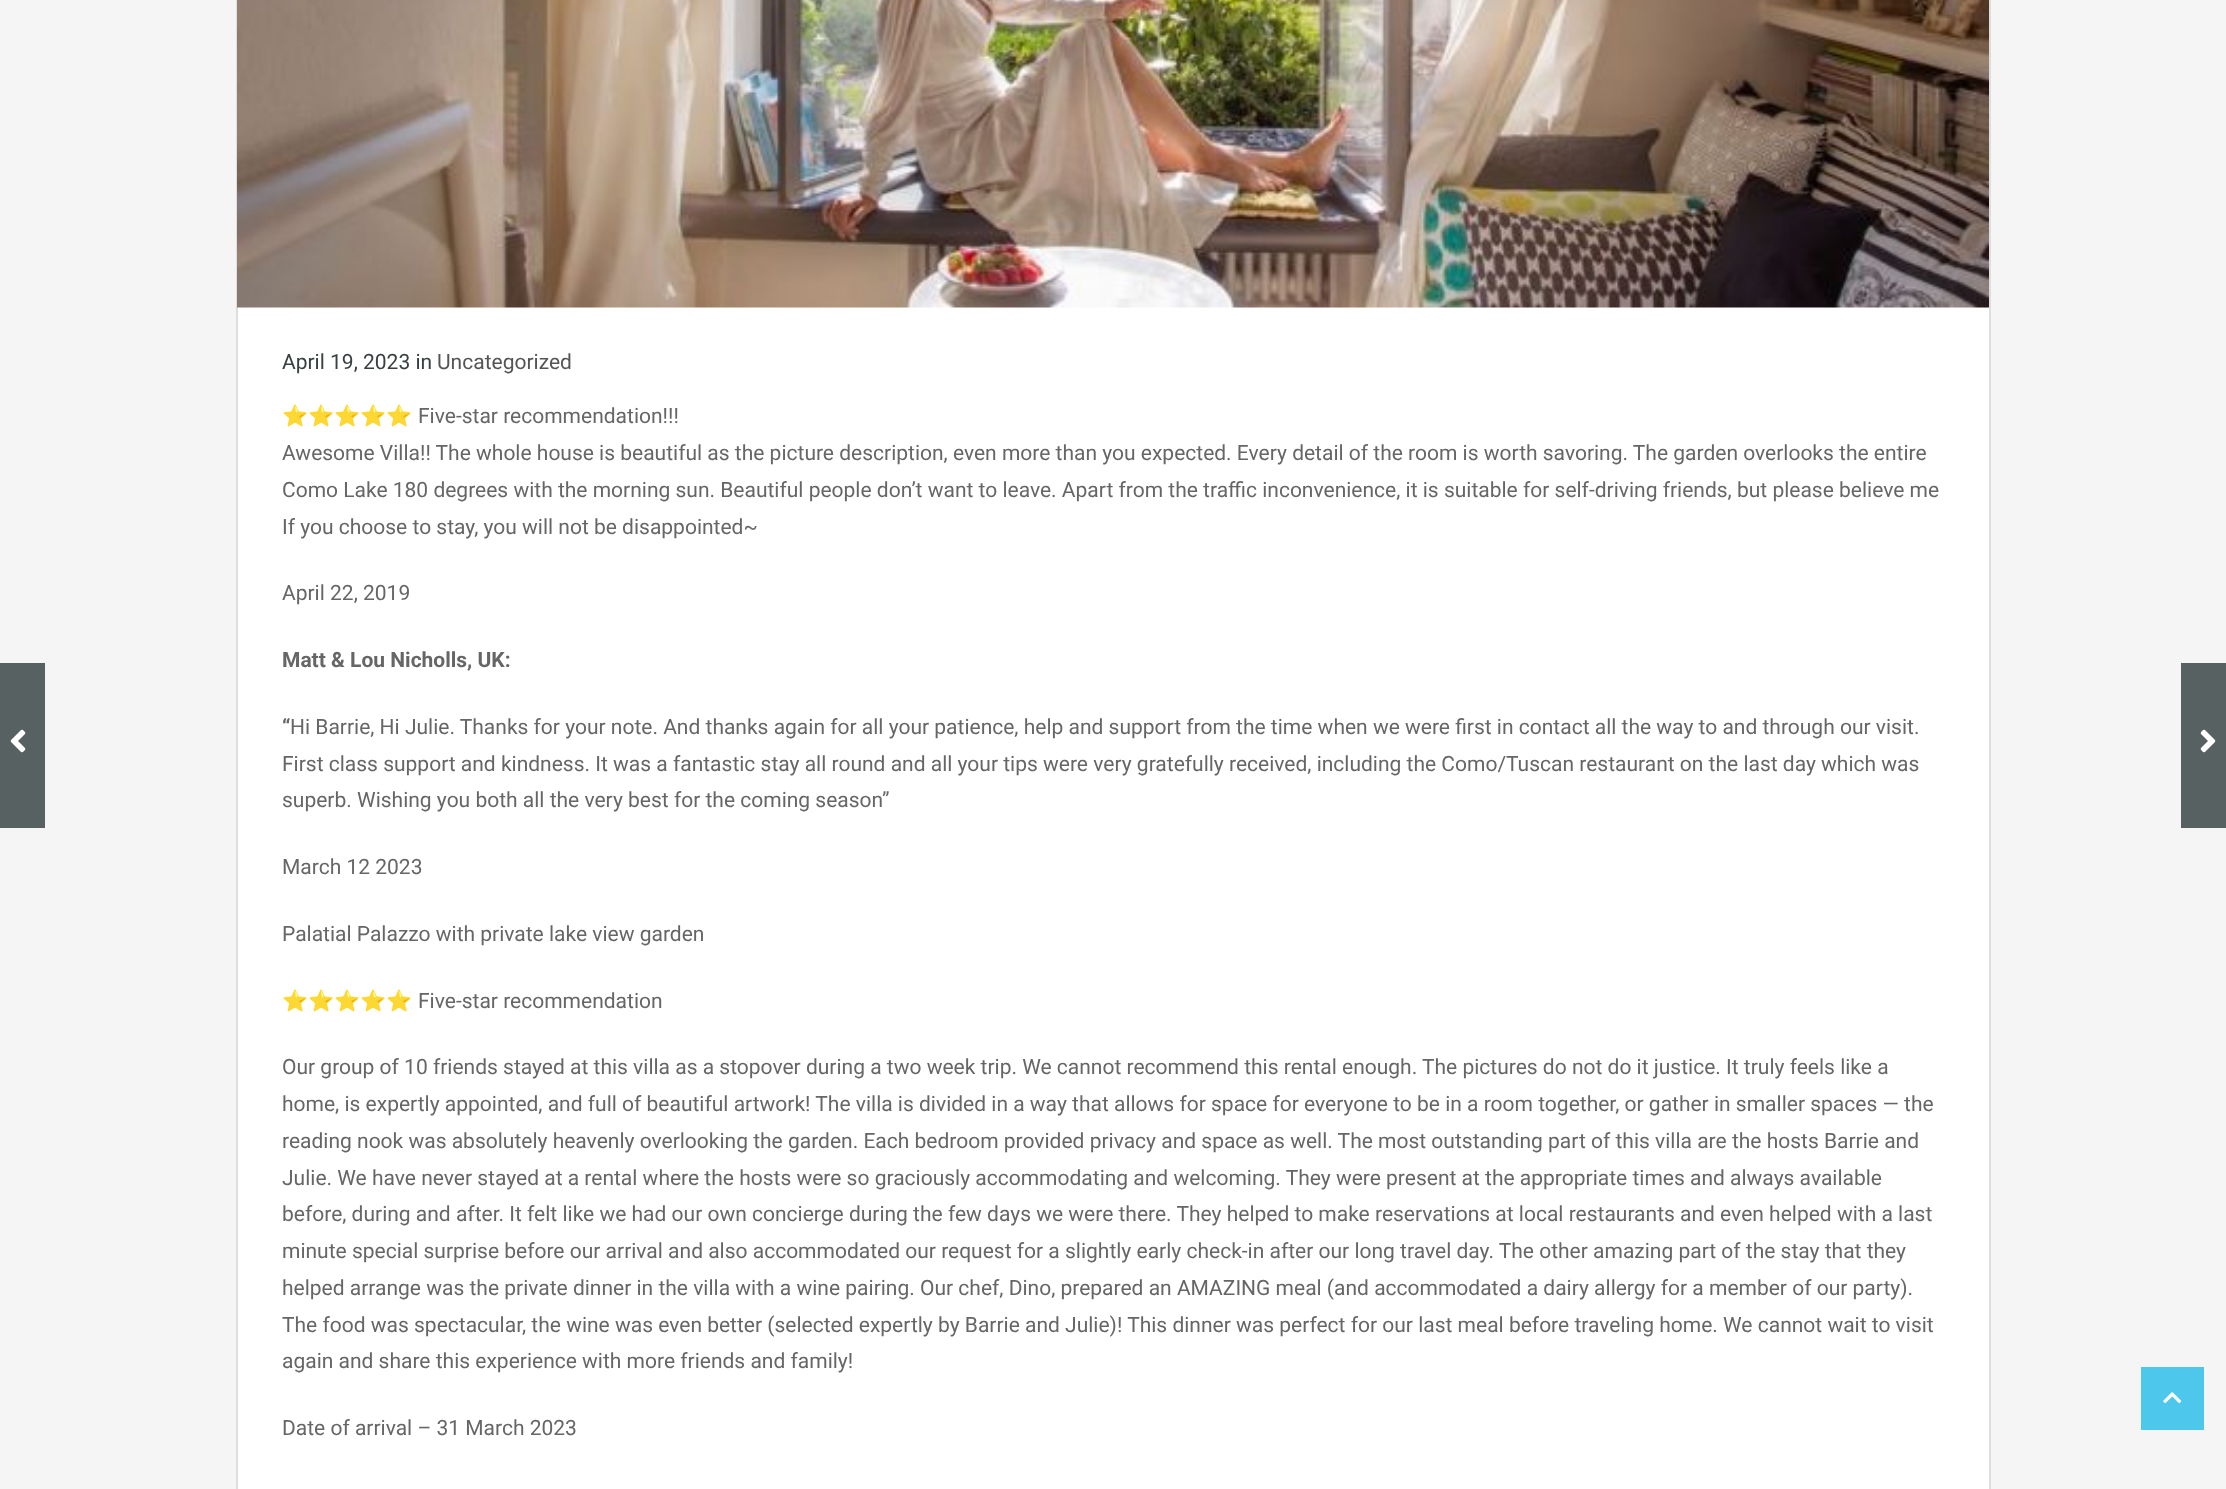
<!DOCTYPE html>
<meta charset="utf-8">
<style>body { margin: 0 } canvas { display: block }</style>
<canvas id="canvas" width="2226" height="1489"></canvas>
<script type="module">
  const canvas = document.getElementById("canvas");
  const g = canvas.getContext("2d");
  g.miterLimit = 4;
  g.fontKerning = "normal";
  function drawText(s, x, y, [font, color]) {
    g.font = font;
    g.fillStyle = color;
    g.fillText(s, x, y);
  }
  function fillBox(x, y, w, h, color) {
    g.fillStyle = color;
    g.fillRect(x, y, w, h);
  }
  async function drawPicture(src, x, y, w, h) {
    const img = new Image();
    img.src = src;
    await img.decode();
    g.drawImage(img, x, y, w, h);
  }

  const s1 = ["21px Roboto", "#394041"];
  const s2 = ["21px Roboto", "#555555"];
  const s3 = ["21px Noto Color Emoji", "#666666"];
  const s4 = ["21px Roboto", "#666666"];
  const s5 = ["bold 21px Roboto", "#666666"];

  fillBox(0, 0, 2226, 1489, "#F5F5F5");
  fillBox(0, 663, 45, 165, "#586162");
  await drawPicture("pic1.png", 10, 729, 16, 24);
  fillBox(238, 307, 1751, 1182, "#FFFFFF");
  g.strokeStyle = "#DEDEDE";
  g.lineWidth = 2;
  g.strokeRect(237, -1, 1753, 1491);
  await drawPicture("pic2.png", 237, 0, 1752, 308);
  drawText("April 19, 2023 in", 282, 369, s1);
  drawText("Uncategorized", 437, 369, s2);
  drawText("⭐️⭐️⭐️⭐️⭐️", 282, 423, s3);
  drawText("Five-star recommendation!!!", 418, 423, s4);
  drawText("Awesome Villa!! The whole house is beautiful as the picture description, even more than you expected. Every detail of the room is worth savoring. The garden overlooks the entire", 282, 460, s4);
  drawText("Como Lake 180 degrees with the morning sun. Beautiful people don’t want to leave. Apart from the traffic inconvenience, it is suitable for self-driving friends, but please believe me", 282, 497, s4);
  drawText("If you choose to stay, you will not be disappointed~", 282, 534, s4);
  drawText("April 22, 2019", 282, 600, s4);
  drawText("Matt & Lou Nicholls, UK:", 282, 667, s5);
  drawText("“", 282, 734, s5);
  drawText("Hi Barrie, Hi Julie. Thanks for your note. And thanks again for all your patience, help and support from the time when we were first in contact all the way to and through our visit.", 290, 734, s4);
  drawText("First class support and kindness. It was a fantastic stay all round and all your tips were very gratefully received, including the Como/Tuscan restaurant on the last day which was", 282, 771, s4);
  drawText("superb. Wishing you both all the very best for the coming season”", 282, 807, s4);
  drawText("March 12 2023", 282, 874, s4);
  drawText("Palatial Palazzo with private lake view garden", 282, 941, s4);
  drawText("⭐️⭐️⭐️⭐️⭐️", 282, 1008, s3);
  drawText("Five-star recommendation", 418, 1008, s4);
  drawText("Our group of 10 friends stayed at this villa as a stopover during a two week trip. We cannot recommend this rental enough. The pictures do not do it justice. It truly feels like a", 282, 1074, s4);
  drawText("home, is expertly appointed, and full of beautiful artwork! The villa is divided in a way that allows for space for everyone to be in a room together, or gather in smaller spaces — the", 282, 1111, s4);
  drawText("reading nook was absolutely heavenly overlooking the garden. Each bedroom provided privacy and space as well. The most outstanding part of this villa are the hosts Barrie and", 282, 1148, s4);
  drawText("Julie. We have never stayed at a rental where the hosts were so graciously accommodating and welcoming. They were present at the appropriate times and always available", 282, 1185, s4);
  drawText("before, during and after. It felt like we had our own concierge during the few days we were there. They helped to make reservations at local restaurants and even helped with a last", 282, 1221, s4);
  drawText("minute special surprise before our arrival and also accommodated our request for a slightly early check-in after our long travel day. The other amazing part of the stay that they", 282, 1258, s4);
  drawText("helped arrange was the private dinner in the villa with a wine pairing. Our chef, Dino, prepared an AMAZING meal (and accommodated a dairy allergy for a member of our party).", 282, 1295, s4);
  drawText("The food was spectacular, the wine was even better (selected expertly by Barrie and Julie)! This dinner was perfect for our last meal before traveling home. We cannot wait to visit", 282, 1332, s4);
  drawText("again and share this experience with more friends and family!", 282, 1368, s4);
  drawText("Date of arrival – 31 March 2023", 282, 1435, s4);
  fillBox(2181, 663, 45, 165, "#586162");
  await drawPicture("pic3.png", 2200, 729, 16, 24);
  fillBox(2141, 1367, 63, 63, "#4DC7EC");
  await drawPicture("pic4.png", 2163, 1392, 19, 11);
</script>
